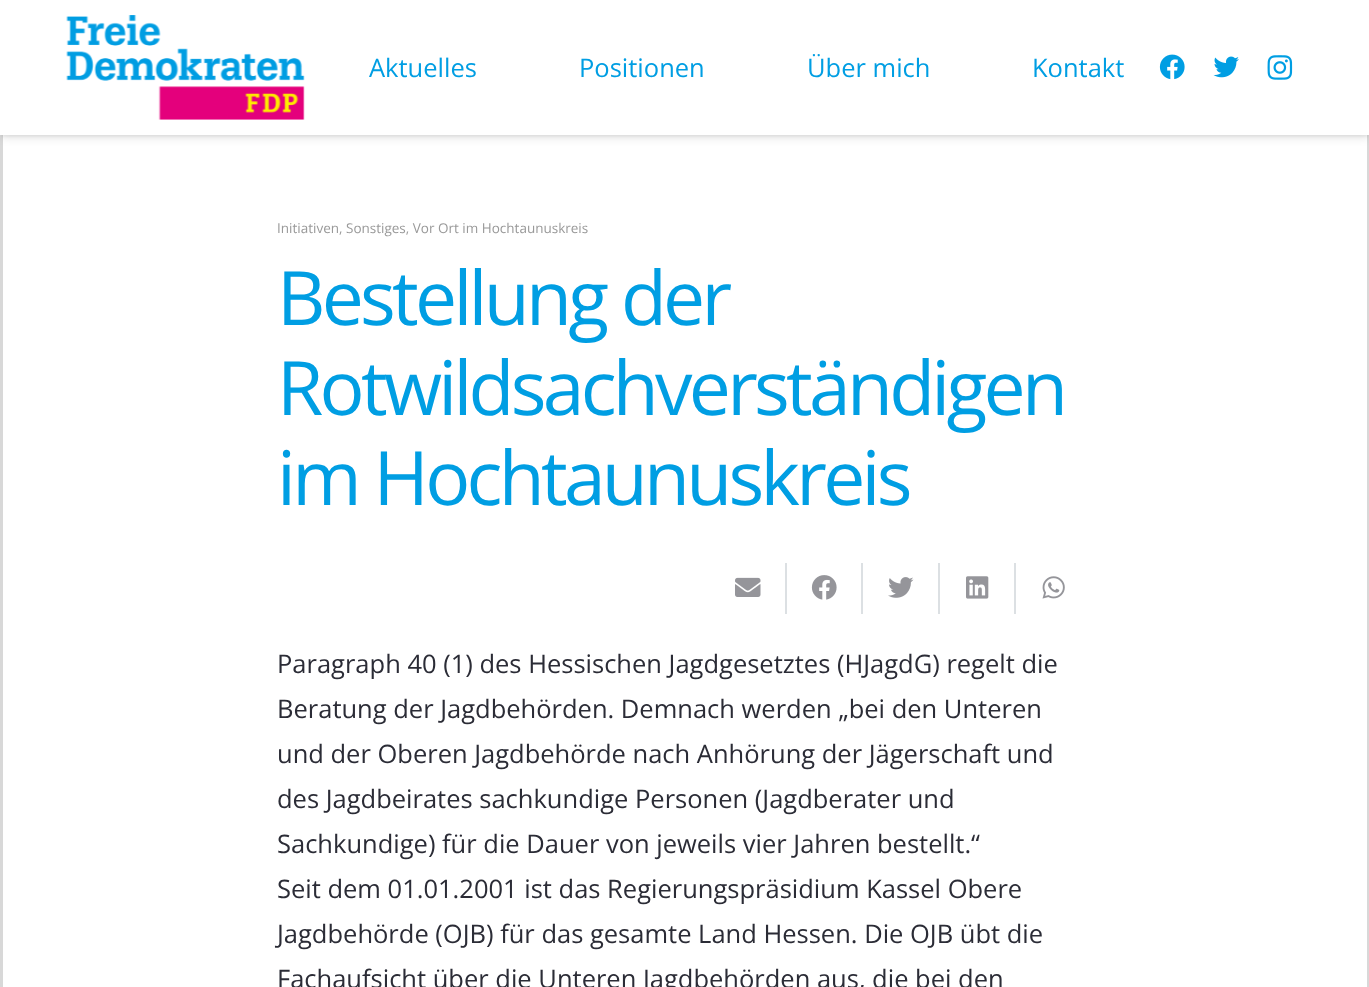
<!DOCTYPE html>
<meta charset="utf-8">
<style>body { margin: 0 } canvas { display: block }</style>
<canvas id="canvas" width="1369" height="987"></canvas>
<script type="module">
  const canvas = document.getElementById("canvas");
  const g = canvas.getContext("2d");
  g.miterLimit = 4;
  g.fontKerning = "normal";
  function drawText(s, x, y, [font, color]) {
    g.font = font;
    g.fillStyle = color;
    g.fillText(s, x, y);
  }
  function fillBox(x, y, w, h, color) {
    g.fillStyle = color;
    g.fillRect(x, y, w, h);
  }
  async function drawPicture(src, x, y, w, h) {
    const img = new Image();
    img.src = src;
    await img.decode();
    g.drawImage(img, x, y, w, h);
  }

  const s1 = ["25.5px Open Sans", "#009EE3"];
  const s2 = ["13.5px Open Sans", "#999999"];
  const s3 = ["75px Open Sans", "#009EE3"];
  const s4 = ["25.5px Open Sans", "#2B2C36"];

  fillBox(0, 0, 1369, 987, "#FFFFFF");
  g.strokeStyle = "#D8D8D8";
  g.lineWidth = 3;
  g.strokeRect(1.5, 1.5, 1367, 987);
  g.fillStyle = "rgba(0, 0, 0, 0.05)";
  g.filter = "blur(1px)";
  g.beginPath();
  g.rect(2, 5, 1366, 132);
  g.fill();
  g.filter = "none";
  g.fillStyle = "rgba(0, 0, 0, 0.1)";
  g.filter = "blur(4px)";
  g.beginPath();
  g.rect(2, 6, 1366, 132);
  g.fill();
  g.filter = "none";
  fillBox(0, 0, 1369, 135, "#FFFFFF");
  await drawPicture("pic1.png", 66, 15, 239, 105);
  drawText("Aktuelles", 369, 77, s1);
  drawText("Positionen", 579, 77, s1);
  drawText("Über mich", 807, 77, s1);
  drawText("Kontakt", 1032, 77, s1);
  await drawPicture("pic2.png", 1159, 54, 26, 26);
  await drawPicture("pic3.png", 1213, 56, 26, 22);
  await drawPicture("pic4.png", 1267, 55, 26, 25);
  drawText("Initiativen, Sonstiges, Vor Ort im Hochtaunuskreis", 277, 233, s2);
  g.letterSpacing = "-3.75px";
  drawText("Bestellung der", 277, 325, s3);
  drawText("Rotwildsachverständigen", 277, 415, s3);
  drawText("im Hochtaunuskreis", 277, 505, s3);
  fillBox(785, 563, 2, 51, "#DCE0E3");
  await drawPicture("pic5.png", 735, 577, 26, 20);
  fillBox(861, 563, 2, 51, "#DCE0E3");
  await drawPicture("pic6.png", 811, 575, 26, 25);
  fillBox(938, 563, 2, 51, "#DCE0E3");
  await drawPicture("pic7.png", 888, 577, 26, 21);
  fillBox(1014, 563, 2, 51, "#DCE0E3");
  await drawPicture("pic8.png", 966, 576, 23, 23);
  await drawPicture("pic9.png", 1042, 576, 23, 23);
  g.letterSpacing = "0px";
  drawText("Paragraph 40 (1) des Hessischen Jagdgesetztes (HJagdG) regelt die", 277, 673, s4);
  drawText("Beratung der Jagdbehörden. Demnach werden „bei den Unteren", 277, 718, s4);
  drawText("und der Oberen Jagdbehörde nach Anhörung der Jägerschaft und", 277, 763, s4);
  drawText("des Jagdbeirates sachkundige Personen (Jagdberater und", 277, 808, s4);
  drawText("Sachkundige) für die Dauer von jeweils vier Jahren bestellt.“", 277, 853, s4);
  drawText("Seit dem 01.01.2001 ist das Regierungspräsidium Kassel Obere", 277, 898, s4);
  drawText("Jagdbehörde (OJB) für das gesamte Land Hessen. Die OJB übt die", 277, 943, s4);
  drawText("Fachaufsicht über die Unteren Jagdbehörden aus, die bei den", 277, 988, s4);
</script>
